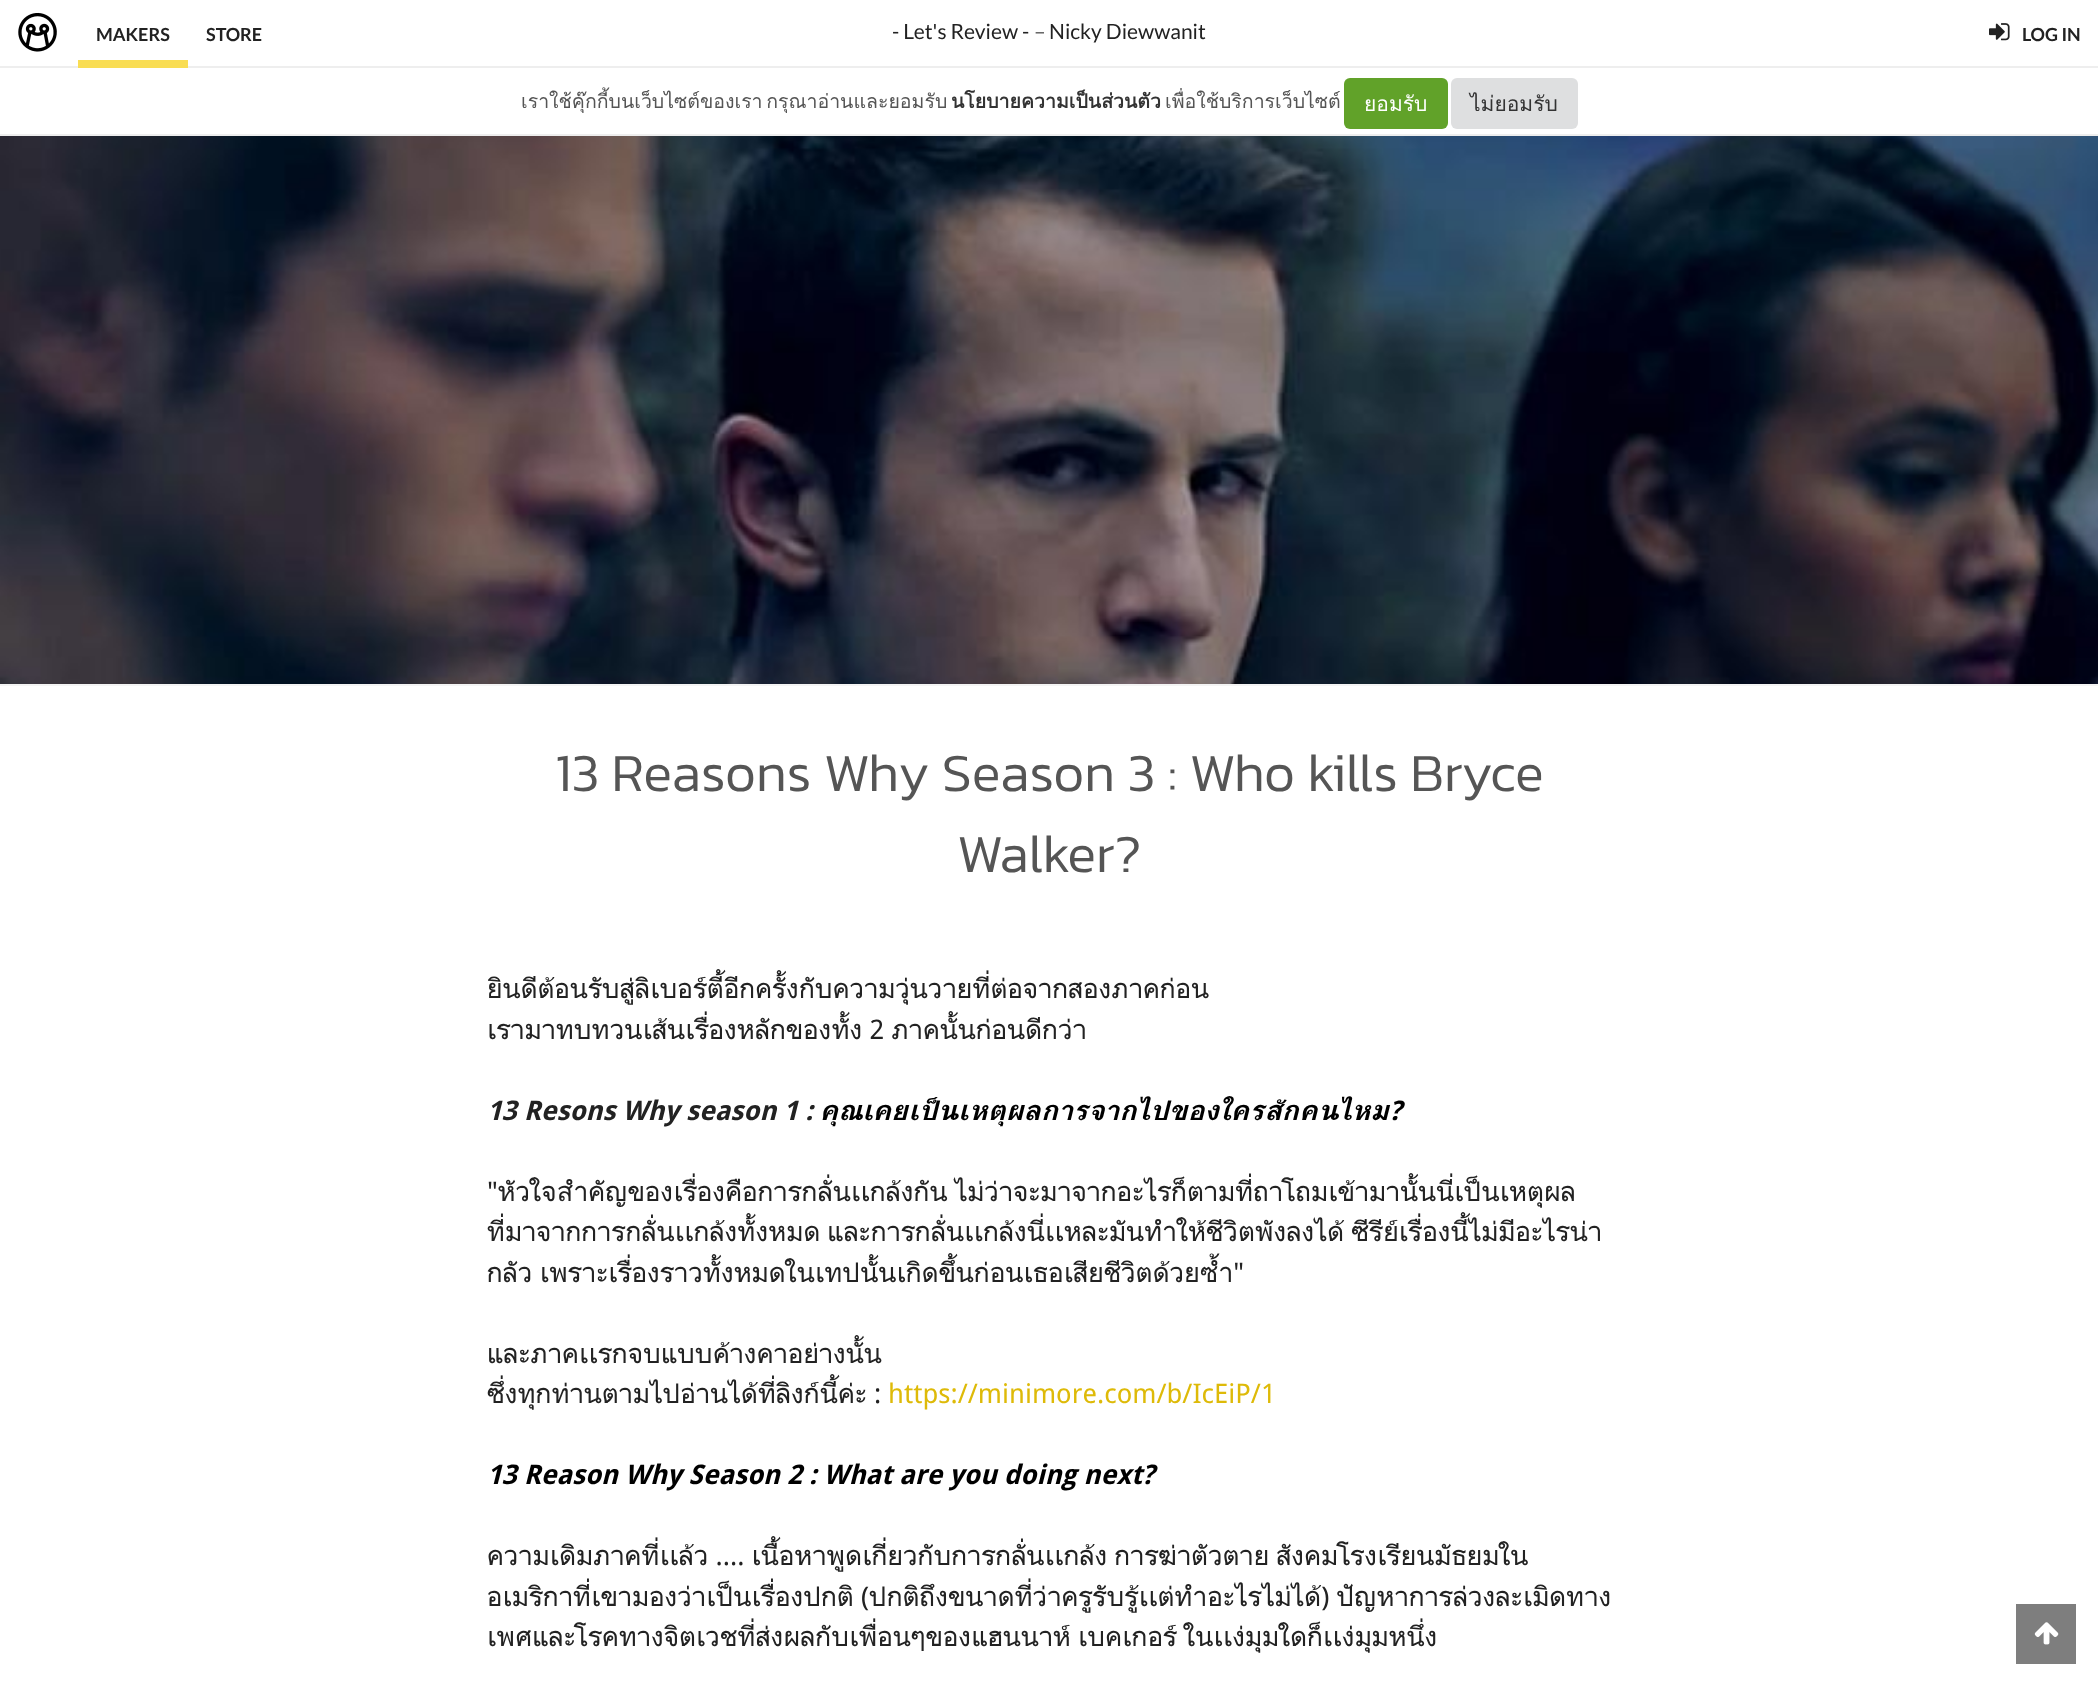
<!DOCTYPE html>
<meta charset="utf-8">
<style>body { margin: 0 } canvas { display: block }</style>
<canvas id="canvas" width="2098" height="1686"></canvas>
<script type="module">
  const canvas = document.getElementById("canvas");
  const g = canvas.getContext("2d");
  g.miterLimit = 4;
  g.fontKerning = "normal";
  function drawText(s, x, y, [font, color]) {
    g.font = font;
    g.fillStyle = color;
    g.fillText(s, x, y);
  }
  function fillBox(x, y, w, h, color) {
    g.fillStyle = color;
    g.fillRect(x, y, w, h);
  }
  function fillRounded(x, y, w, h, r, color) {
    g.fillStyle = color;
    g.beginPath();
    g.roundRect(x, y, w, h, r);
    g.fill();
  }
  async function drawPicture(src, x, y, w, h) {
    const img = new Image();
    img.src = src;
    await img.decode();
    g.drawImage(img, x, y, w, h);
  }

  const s1 = ["21px Lato", "#222222"];
  const s2 = ["21px Lato", "#555555"];
  const s3 = ["300 54px Kanit", "#555555"];
  const s4 = ["27px Droid Sans", "#222222"];
  const s5 = ["italic bold 27px Droid Sans", "#222222"];
  const s6 = ["italic bold 27px Droid Sans", "#000000"];
  const s7 = ["27px Droid Sans", "#DEBA08"];
  const s8 = ["bold 18px Lato", "#222222"];
  const s9 = ["19.5px Loma", "#555555"];
  const s10 = ["bold 19.5px Loma", "#333333"];
  const s11 = ["21px Loma", "#FFFFFF"];
  const s12 = ["21px Loma", "#333333"];

  fillBox(0, 0, 2098, 1686, "#FFFFFF");
  drawText("- Let's Review -", 892, 39, s1);
  drawText("–", 1034, 39, s2);
  drawText("Nicky Diewwanit", 1049, 39, s1);
  await drawPicture("pic1.png", 0, 136, 2098, 548);
  fillBox(0, 684, 2098, 2, "#F4F4F4");
  drawText("13 Reasons Why Season 3 : Who kills Bryce", 555, 791, s3);
  drawText("Walker?", 957, 872, s3);
  drawText("ยินดีต้อนรับสู่ลิเบอร์ตี้อีกครั้งกับความวุ่นวายที่ต่อจากสองภาคก่อน", 487, 998, s4);
  drawText("เรามาทบทวนเส้นเรื่องหลักของทั้ง 2 ภาคนั้นก่อนดีกว่า", 487, 1039, s4);
  drawText("13 Resons Why season 1 :", 487, 1120, s5);
  drawText("คุณเคยเป็นเหตุผลการจากไปของใครสักคนไหม?", 820, 1120, s6);
  drawText("\"หัวใจสำคัญของเรื่องคือการกลั่นเเกล้งกัน ไม่ว่าจะมาจากอะไรก็ตามที่ถาโถมเข้ามานั้นนี่เป็นเหตุผล", 487, 1201, s4);
  drawText("ที่มาจากการกลั่นเเกล้งทั้งหมด และการกลั่นเเกล้งนี่เเหละมันทำให้ชีวิตพังลงได้ ซีรีย์เรื่องนี้ไม่มีอะไรน่า", 487, 1241, s4);
  drawText("กลัว เพราะเรื่องราวทั้งหมดในเทปนั้นเกิดขึ้นก่อนเธอเสียชีวิตด้วยซ้ำ\"", 487, 1282, s4);
  drawText("และภาคเเรกจบแบบค้างคาอย่างนั้น", 487, 1363, s4);
  drawText("ซึ่งทุกท่านตามไปอ่านได้ที่ลิงก์นี้ค่ะ :", 487, 1403, s4);
  drawText("https://minimore.com/b/IcEiP/1", 888, 1403, s7);
  drawText("13 Reason Why Season 2 : What are you doing next?", 487, 1484, s6);
  drawText("ความเดิมภาคที่เเล้ว .... เนื้อหาพูดเกี่ยวกับการกลั่นเเกล้ง การฆ่าตัวตาย สังคมโรงเรียนมัธยมใน", 487, 1565, s4);
  drawText("อเมริกาที่เขามองว่าเป็นเรื่องปกติ (ปกติถึงขนาดที่ว่าครูรับรู้เเต่ทำอะไรไม่ได้) ปัญหาการล่วงละเมิดทาง", 487, 1606, s4);
  drawText("เพศและโรคทางจิตเวชที่ส่งผลกับเพื่อนๆของแฮนนาห์ เบคเกอร์ ในเเง่มุมใดก็เเง่มุมหนึ่ง", 487, 1646, s4);
  fillBox(2016, 1604, 60, 60, "#7E7E7E");
  await drawPicture("pic2.png", 2034, 1622, 25, 23);
  fillBox(0, 66, 2098, 2, "#EEEEEE");
  await drawPicture("pic3.png", 18, 12, 39, 40);
  fillBox(78, 60, 110, 8, "#F9DD53");
  drawText("MAKERS", 96, 41, s8);
  drawText("STORE", 206, 41, s8);
  await drawPicture("pic4.png", 1989, 23, 21, 18);
  drawText("LOG IN", 2022, 41, s8);
  fillBox(0, 134, 2098, 2, "#EEEEEE");
  g.wordSpacing = "-3px";
  drawText("เราใช้คุ๊กกี้บนเว็บไซต์ของเรา กรุณาอ่านและยอมรับ", 521, 108, s9);
  g.wordSpacing = "0px";
  drawText("นโยบายความเป็นส่วนตัว", 951, 108, s10);
  drawText("เพื่อใช้บริการเว็บไซต์", 1165, 108, s9);
  fillRounded(1344, 78, 104, 51, 6, "#61A229");
  drawText("ยอมรับ", 1364, 111, s11);
  fillRounded(1451, 78, 127, 51, 6, "#DEDFE0");
  drawText("ไม่ยอมรับ", 1470, 111, s12);
</script>
